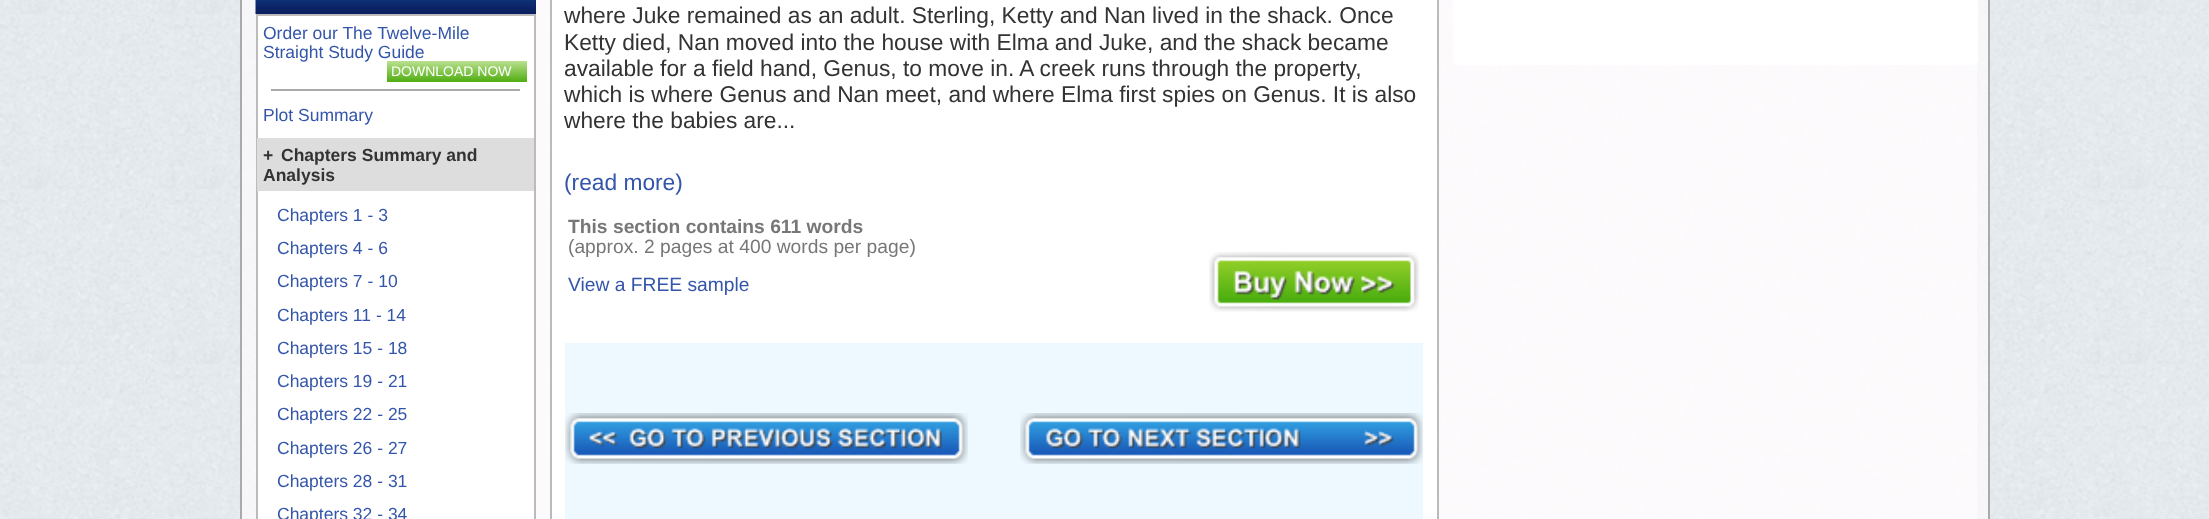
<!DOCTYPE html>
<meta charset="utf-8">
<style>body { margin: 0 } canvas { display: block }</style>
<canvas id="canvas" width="2209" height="519"></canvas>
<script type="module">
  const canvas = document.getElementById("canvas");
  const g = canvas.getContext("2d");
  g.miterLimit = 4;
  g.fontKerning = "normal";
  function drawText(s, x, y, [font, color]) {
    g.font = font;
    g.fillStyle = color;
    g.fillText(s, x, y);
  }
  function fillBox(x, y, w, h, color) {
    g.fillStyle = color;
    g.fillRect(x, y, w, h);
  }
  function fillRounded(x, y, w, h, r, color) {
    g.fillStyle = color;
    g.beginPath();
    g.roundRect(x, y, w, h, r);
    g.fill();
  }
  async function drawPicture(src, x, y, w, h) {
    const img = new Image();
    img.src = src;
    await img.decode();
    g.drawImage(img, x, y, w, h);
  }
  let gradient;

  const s1 = ["17.5px Liberation Sans", "#3355AA"];
  const s2 = ["14px Liberation Sans", "#FFFFFF"];
  const s3 = ["bold 17.5px Liberation Sans", "#333333"];
  const s4 = ["22.75px Liberation Sans", "#333333"];
  const s5 = ["22.75px Liberation Sans", "#3355AA"];
  const s6 = ["bold 19.25px Liberation Sans", "#777777"];
  const s7 = ["19.25px Liberation Sans", "#777777"];
  const s8 = ["19.25px Liberation Sans", "#3355AA"];

  fillBox(0, 0, 2209, 519, "#FFFFFF");
  await drawPicture("pic1.png", 0, 0, 2209, 519);
  g.fillStyle = "rgba(255, 252, 254, 0.67)";
  g.beginPath();
  g.rect(241, -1, 1748, 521);
  g.fill();
  g.strokeStyle = "#AAAAAA";
  g.lineWidth = 2;
  g.stroke();
  fillBox(536, 0, 1441, 519, "rgba(255, 252, 254, 0.67)");
  fillBox(535, 0, 1, 14, "#091E5E");
  await drawPicture("pic2.png", 255, 0, 281, 14);
  g.fillStyle = "#FFFFFF";
  g.beginPath();
  g.rect(257, 15, 278, 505);
  g.fill();
  g.strokeStyle = "#BBBBBB";
  g.stroke();
  drawText("Order our The Twelve-Mile", 263, 39, s1);
  gradient = g.createLinearGradient(457, 61, 457, 82);
  gradient.addColorStop(0, "#BBE090");
  gradient.addColorStop(1, "#4FAD10");
  g.fillStyle = gradient;
  g.fillRect(387, 61, 140, 21);
  drawText("Straight Study Guide", 263, 58, s1);
  drawText("DOWNLOAD NOW", 391, 76, s2);
  fillBox(271, 89, 249, 2, "#AAAAAA");
  drawText("Plot Summary", 263, 121, s1);
  fillBox(257, 138, 277, 53, "#DDDDDD");
  drawText("+", 263, 161, s3);
  drawText("Chapters Summary and", 281, 161, s3);
  drawText("Analysis", 263, 181, s3);
  drawText("Chapters 1 - 3", 277, 221, s1);
  drawText("Chapters 4 - 6", 277, 254, s1);
  drawText("Chapters 7 - 10", 277, 287, s1);
  drawText("Chapters 11 - 14", 277, 321, s1);
  drawText("Chapters 15 - 18", 277, 354, s1);
  drawText("Chapters 19 - 21", 277, 387, s1);
  drawText("Chapters 22 - 25", 277, 420, s1);
  drawText("Chapters 26 - 27", 277, 454, s1);
  drawText("Chapters 28 - 31", 277, 487, s1);
  drawText("Chapters 32 - 34", 277, 520, s1);
  g.fillStyle = "#FFFFFF";
  g.beginPath();
  g.rect(551, -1, 887, 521);
  g.fill();
  g.stroke();
  drawText("where Juke remained as an adult. Sterling, Ketty and Nan lived in the shack. Once", 564, 23, s4);
  drawText("Ketty died, Nan moved into the house with Elma and Juke, and the shack became", 564, 50, s4);
  drawText("available for a field hand, Genus, to move in. A creek runs through the property,", 564, 76, s4);
  drawText("which is where Genus and Nan meet, and where Elma first spies on Genus. It is also", 564, 102, s4);
  drawText("where the babies are...", 564, 128, s4);
  drawText("(read more)", 564, 190, s5);
  drawText("This section contains 611 words", 568, 233, s6);
  drawText("(approx. 2 pages at 400 words per page)", 568, 253, s7);
  drawText("View a FREE sample", 568, 291, s8);
  await drawPicture("pic3.png", 1209, 252, 210, 60);
  fillBox(565, 343, 858, 176, "#EDF9FF");
  await drawPicture("pic4.png", 565, 413, 403, 51);
  await drawPicture("pic5.png", 1020, 413, 403, 51);
  fillRounded(1453, -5, 525, 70, 5, "#FFFFFF");
  fillBox(1453, 63, 1, 1, "#FFFFFF");
</script>
